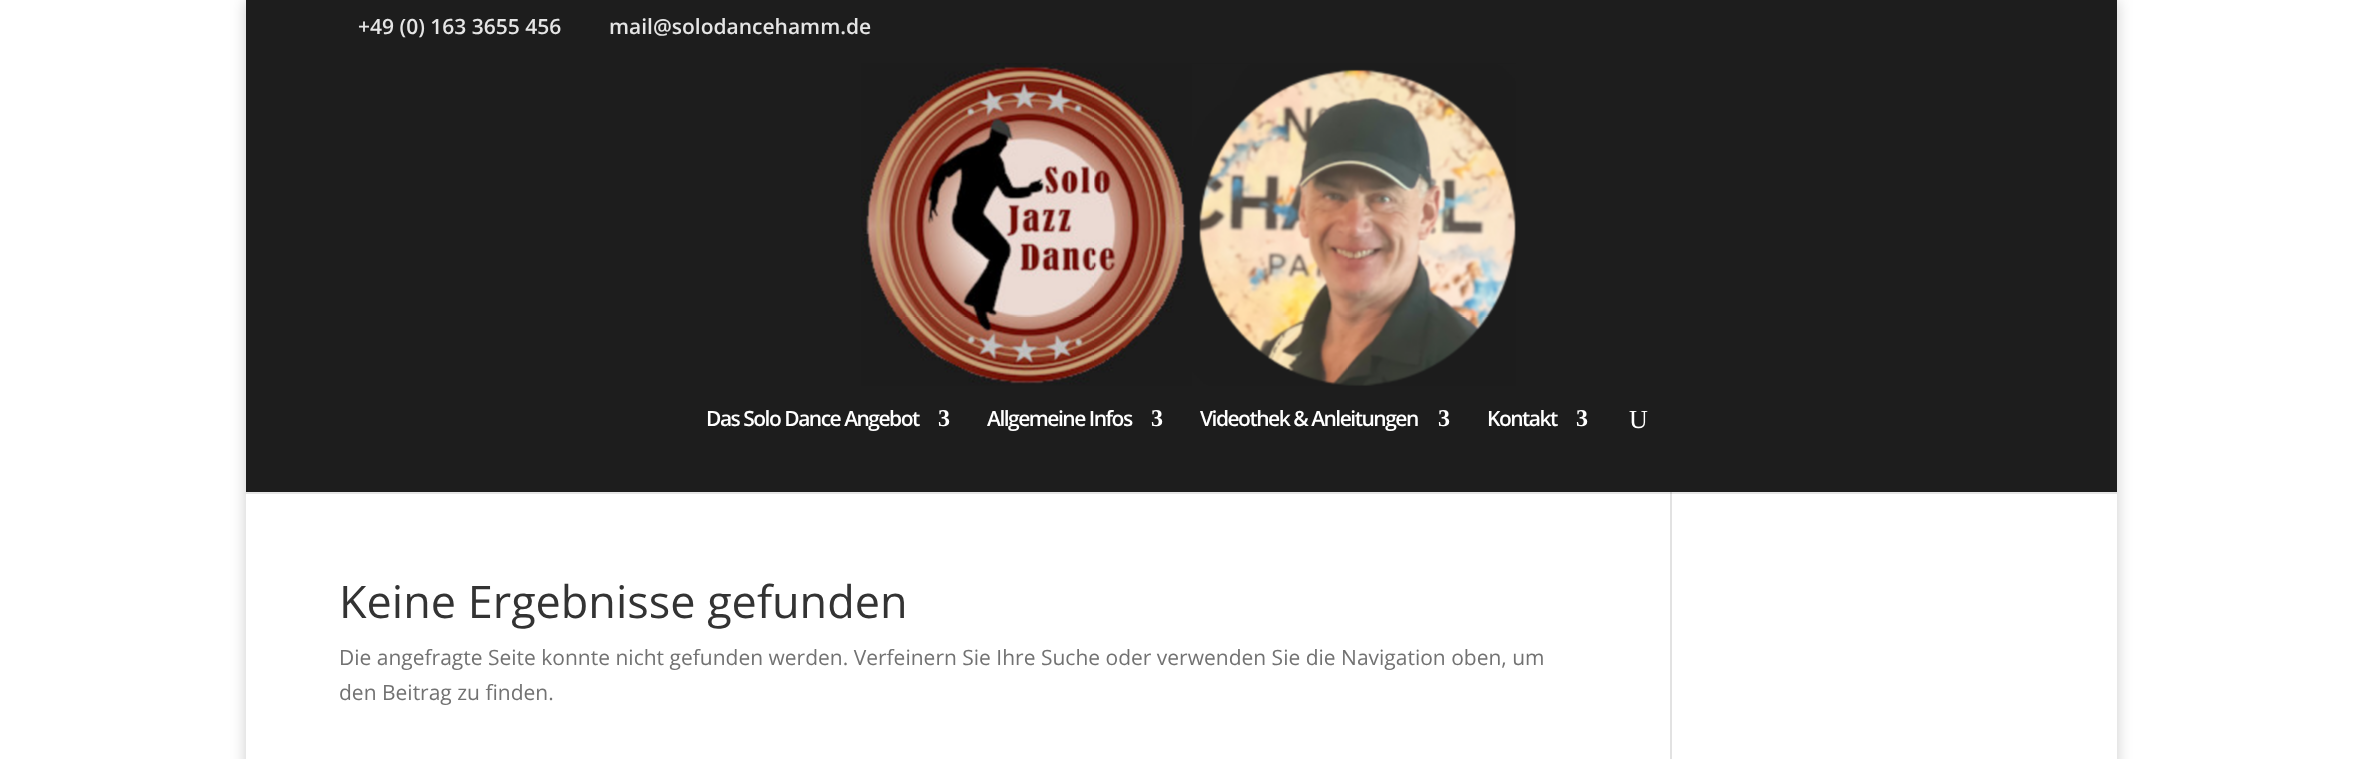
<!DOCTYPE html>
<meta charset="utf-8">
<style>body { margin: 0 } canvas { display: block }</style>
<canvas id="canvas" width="2360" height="759"></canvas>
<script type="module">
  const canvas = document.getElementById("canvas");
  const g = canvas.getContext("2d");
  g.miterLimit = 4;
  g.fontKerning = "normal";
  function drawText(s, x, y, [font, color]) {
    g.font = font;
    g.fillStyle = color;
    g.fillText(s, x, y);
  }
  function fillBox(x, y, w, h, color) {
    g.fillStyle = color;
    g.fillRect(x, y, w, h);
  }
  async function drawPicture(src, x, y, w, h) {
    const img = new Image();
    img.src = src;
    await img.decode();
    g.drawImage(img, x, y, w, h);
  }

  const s1 = ["600 21px Open Sans", "#E5E5E5"];
  const s2 = ["600 21px Open Sans", "#FFFFFF"];
  const s3 = ["bold 24px Liberation Serif", "#FFFFFF"];
  const s4 = ["26px Liberation Serif", "#FFFFFF"];
  const s5 = ["45px Open Sans", "#333333"];
  const s6 = ["21px Open Sans", "#727272"];

  fillBox(0, 0, 2360, 759, "#FFFFFF");
  g.fillStyle = "rgba(0, 0, 0, 0.2)";
  g.filter = "blur(7.5px)";
  g.beginPath();
  g.rect(246, 0, 1871, 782);
  g.fill();
  g.filter = "none";
  fillBox(246, 0, 1871, 54, "#1D1D1D");
  drawText("+49 (0) 163 3655 456", 358, 34, s1);
  drawText("mail@solodancehamm.de", 609, 34, s1);
  fillBox(246, 492, 1871, 267, "#FFFFFF");
  fillBox(1670, 492, 2, 267, "#E2E2E2");
  g.fillStyle = "rgba(0, 0, 0, 0.1)";
  g.beginPath();
  g.moveTo(246, 492);
  g.lineTo(246, 494);
  g.lineTo(2117, 494);
  g.lineTo(2117, 56);
  g.lineTo(2116, 56);
  g.lineTo(2116, 492);
  g.closePath();
  g.fill();
  fillBox(246, 54, 1871, 438, "#1D1D1D");
  await drawPicture("pic1.png", 861, 63, 655, 323);
  g.letterSpacing = "-1.5px";
  drawText("Das Solo Dance Angebot", 706, 426, s2);
  drawText("3", 938, 426, s3);
  drawText("Allgemeine Infos", 987, 426, s2);
  drawText("3", 1151, 426, s3);
  drawText("Videothek & Anleitungen", 1200, 426, s2);
  drawText("3", 1438, 426, s3);
  drawText("Kontakt", 1487, 426, s2);
  drawText("3", 1576, 426, s3);
  g.letterSpacing = "0px";
  drawText("U", 1629, 428, s4);
  drawText("Keine Ergebnisse gefunden", 339, 618, s5);
  drawText("Die angefragte Seite konnte nicht gefunden werden. Verfeinern Sie Ihre Suche oder verwenden Sie die Navigation oben, um", 339, 665, s6);
  drawText("den Beitrag zu finden.", 339, 700, s6);
</script>
